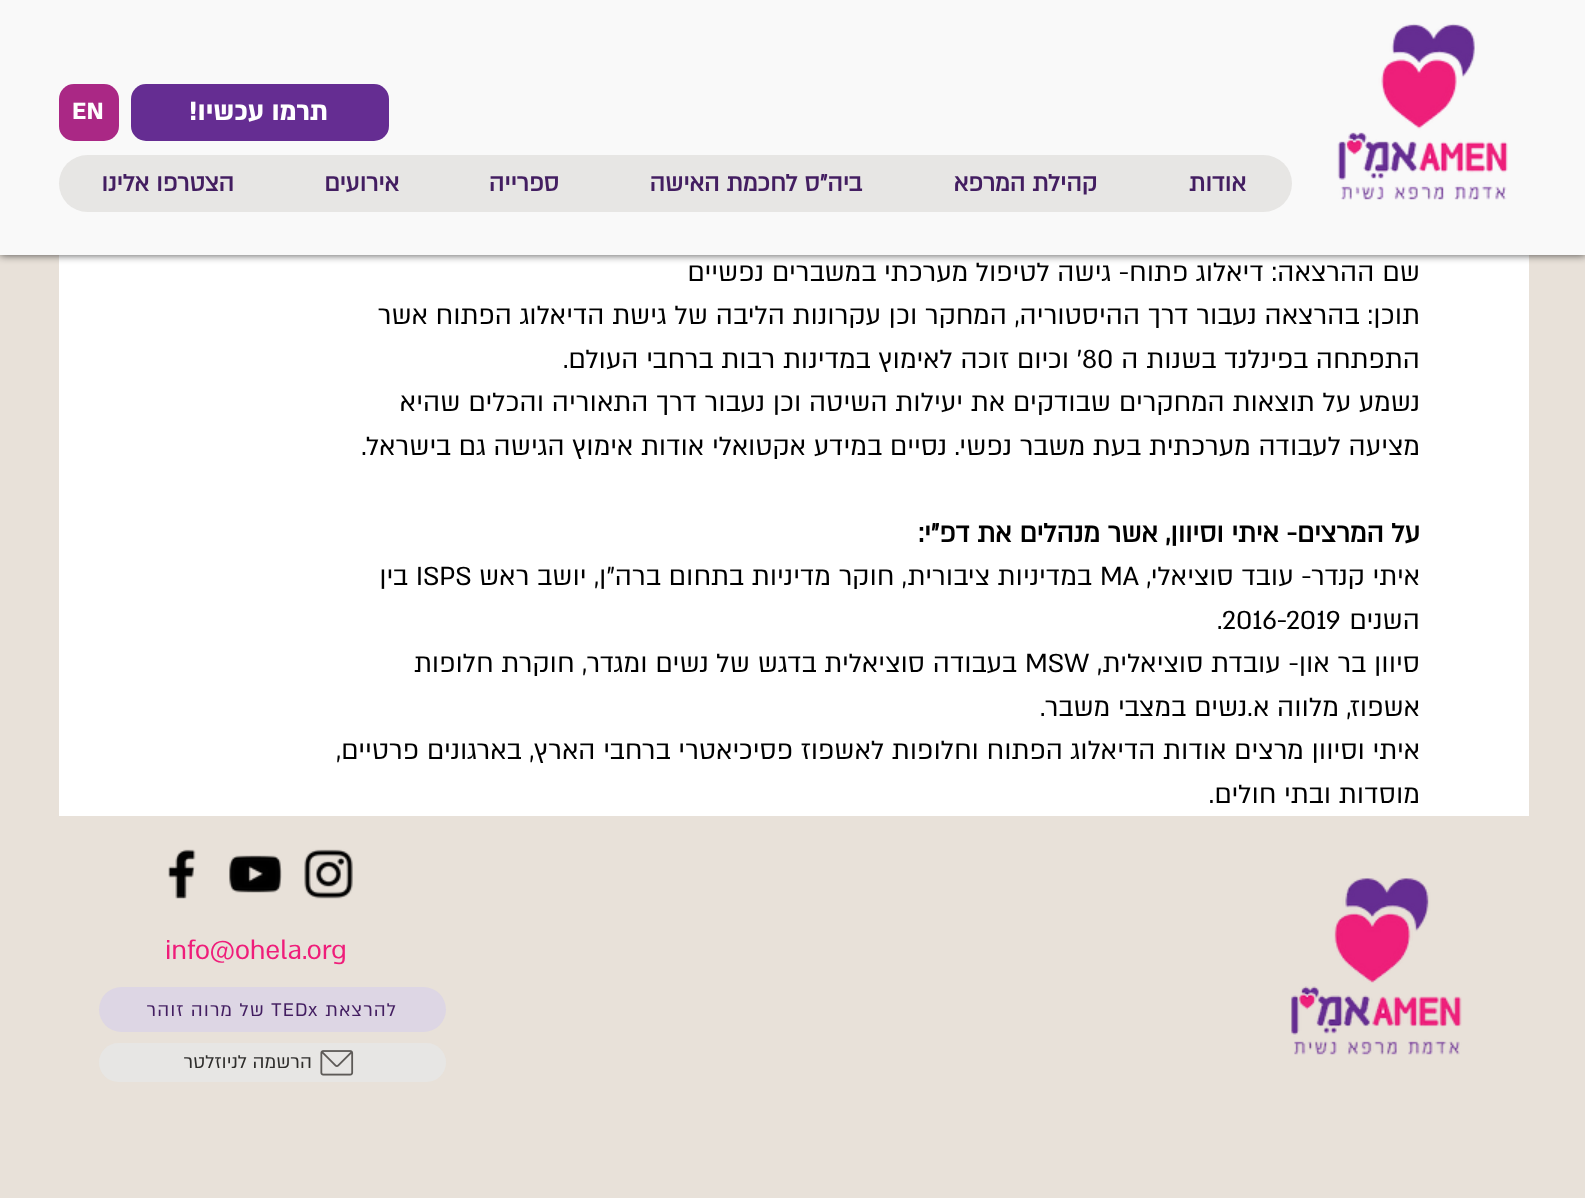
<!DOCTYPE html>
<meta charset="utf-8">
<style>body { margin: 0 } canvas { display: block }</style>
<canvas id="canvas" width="1585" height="1198"></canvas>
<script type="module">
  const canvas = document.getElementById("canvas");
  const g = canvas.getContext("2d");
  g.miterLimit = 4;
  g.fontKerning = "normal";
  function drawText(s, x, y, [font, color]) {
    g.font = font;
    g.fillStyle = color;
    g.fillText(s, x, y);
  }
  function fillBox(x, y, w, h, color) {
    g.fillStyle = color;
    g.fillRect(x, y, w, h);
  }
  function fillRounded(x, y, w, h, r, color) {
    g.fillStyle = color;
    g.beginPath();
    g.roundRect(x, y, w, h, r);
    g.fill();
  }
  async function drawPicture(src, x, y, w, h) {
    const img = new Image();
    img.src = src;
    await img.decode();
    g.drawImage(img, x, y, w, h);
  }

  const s1 = ["bold 30px 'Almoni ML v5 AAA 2'", "#FFFFFF"];
  const s2 = ["bold 27px 'Almoni ML v5 AAA 2'", "#FFFFFF"];
  const s3 = ["bold 27px 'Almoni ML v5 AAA'", "#431E61"];
  const s4 = ["30px 'Almoni ML v5 AAA'", "#000000"];
  const s5 = ["bold 30px 'Almoni ML v5 AAA'", "#000000"];
  const s6 = ["30px 'Almoni ML v5 AAA'", "#EF1D7A"];
  const s7 = ["21px 'Almoni ML v5 AAA'", "#431E61"];
  const s8 = ["21px 'Almoni ML v5 AAA'", "#2E2D2B"];

  fillBox(0, 0, 1585, 1198, "#E8E1D9");
  fillBox(59, 255, 1470, 561, "#FFFFFF");
  g.fillStyle = "rgba(0, 0, 0, 0.7)";
  g.filter = "blur(4px)";
  g.beginPath();
  g.rect(0, 0, 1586, 255);
  g.fill();
  g.filter = "none";
  fillBox(0, 0, 1585, 255, "#F9F9F9");
  await drawPicture("pic1.png", 1337, 23, 171, 177);
  fillRounded(131, 84, 258, 57, 15, "#652D92");
  g.direction = "rtl";
  drawText("תרמו עכשיו", 328, 120, s1);
  g.direction = "ltr";
  drawText("!", 189, 120, s1);
  fillRounded(59, 84, 60, 57, 15, "#AA2885");
  drawText("EN", 72, 119, s2);
  fillRounded(59, 155, 1233, 57, 28.5, "#E7E6E4");
  g.direction = "rtl";
  drawText("אודות", 1246, 191, s3);
  drawText("קהילת המרפא", 1097, 191, s3);
  drawText("ביה\"ס לחכמת האישה", 862, 191, s3);
  drawText("ספרייה", 559, 191, s3);
  drawText("אירועים", 399, 191, s3);
  drawText("הצטרפו אלינו", 234, 191, s3);
  drawText("שם ההרצאה: דיאלוג פתוח- גישה לטיפול מערכתי במשברים נפשיים", 1420, 281, s4);
  drawText("תוכן: בהרצאה נעבור דרך ההיסטוריה, המחקר וכן עקרונות הליבה של גישת הדיאלוג הפתוח אשר", 1420, 324, s4);
  drawText("התפתחה בפינלנד בשנות ה", 1420, 368, s4);
  g.direction = "ltr";
  drawText("80", 1082, 368, s4);
  g.direction = "rtl";
  drawText("' וכיום זוכה לאימוץ במדינות רבות ברחבי העולם.", 1082, 368, s4);
  drawText("נשמע על תוצאות המחקרים שבודקים את יעילות השיטה וכן נעבור דרך התאוריה והכלים שהיא", 1420, 411, s4);
  drawText("מציעה לעבודה מערכתית בעת משבר נפשי. נסיים במידע אקטואלי אודות אימוץ הגישה גם בישראל.", 1420, 455, s4);
  drawText("על המרצים- איתי וסיוון, אשר מנהלים את דפ\"י:", 1420, 542, s5);
  drawText("איתי קנדר- עובד סוציאלי,", 1420, 585, s4);
  g.direction = "ltr";
  drawText("MA", 1100, 585, s4);
  g.direction = "rtl";
  drawText("במדיניות ציבורית, חוקר מדיניות בתחום ברה\"ן, יושב ראש", 1092, 585, s4);
  g.direction = "ltr";
  drawText("ISPS", 416, 585, s4);
  g.direction = "rtl";
  drawText("בין", 408, 585, s4);
  drawText("השנים", 1420, 629, s4);
  g.direction = "ltr";
  drawText(".2016-2019", 1217, 629, s4);
  g.direction = "rtl";
  drawText("סיוון בר און- עובדת סוציאלית,", 1420, 672, s4);
  g.direction = "ltr";
  drawText("MSW", 1025, 672, s4);
  g.direction = "rtl";
  drawText("בעבודה סוציאלית בדגש של נשים ומגדר, חוקרת חלופות", 1017, 672, s4);
  drawText("אשפוז, מלווה א.נשים במצבי משבר.", 1420, 716, s4);
  drawText("איתי וסיוון מרצים אודות הדיאלוג הפתוח וחלופות לאשפוז פסיכיאטרי ברחבי הארץ, בארגונים פרטיים,", 1420, 759, s4);
  drawText("מוסדות ובתי חולים.", 1420, 803, s4);
  await drawPicture("pic2.png", 1291, 878, 171, 177);
  await drawPicture("pic3.png", 304, 849, 49, 50);
  await drawPicture("pic4.png", 229, 855, 53, 38);
  await drawPicture("pic5.png", 168, 849, 28, 50);
  g.direction = "ltr";
  drawText("info@ohela.org", 165, 959, s6);
  fillRounded(99, 987, 347, 45, 22.5, "#DDD6E4");
  g.letterSpacing = "1px";
  g.direction = "rtl";
  drawText("להרצאת", 397, 1016, s7);
  g.direction = "ltr";
  drawText("TEDx", 271, 1016, s7);
  g.direction = "rtl";
  drawText("של מרוה זוהר", 265, 1016, s7);
  fillRounded(99, 1043, 347, 39, 19.5, "#E7E6E4");
  await drawPicture("pic6.png", 320, 1050, 34, 26);
  g.letterSpacing = "0px";
  drawText("הרשמה לניוזלטר", 312, 1068, s8);
</script>
